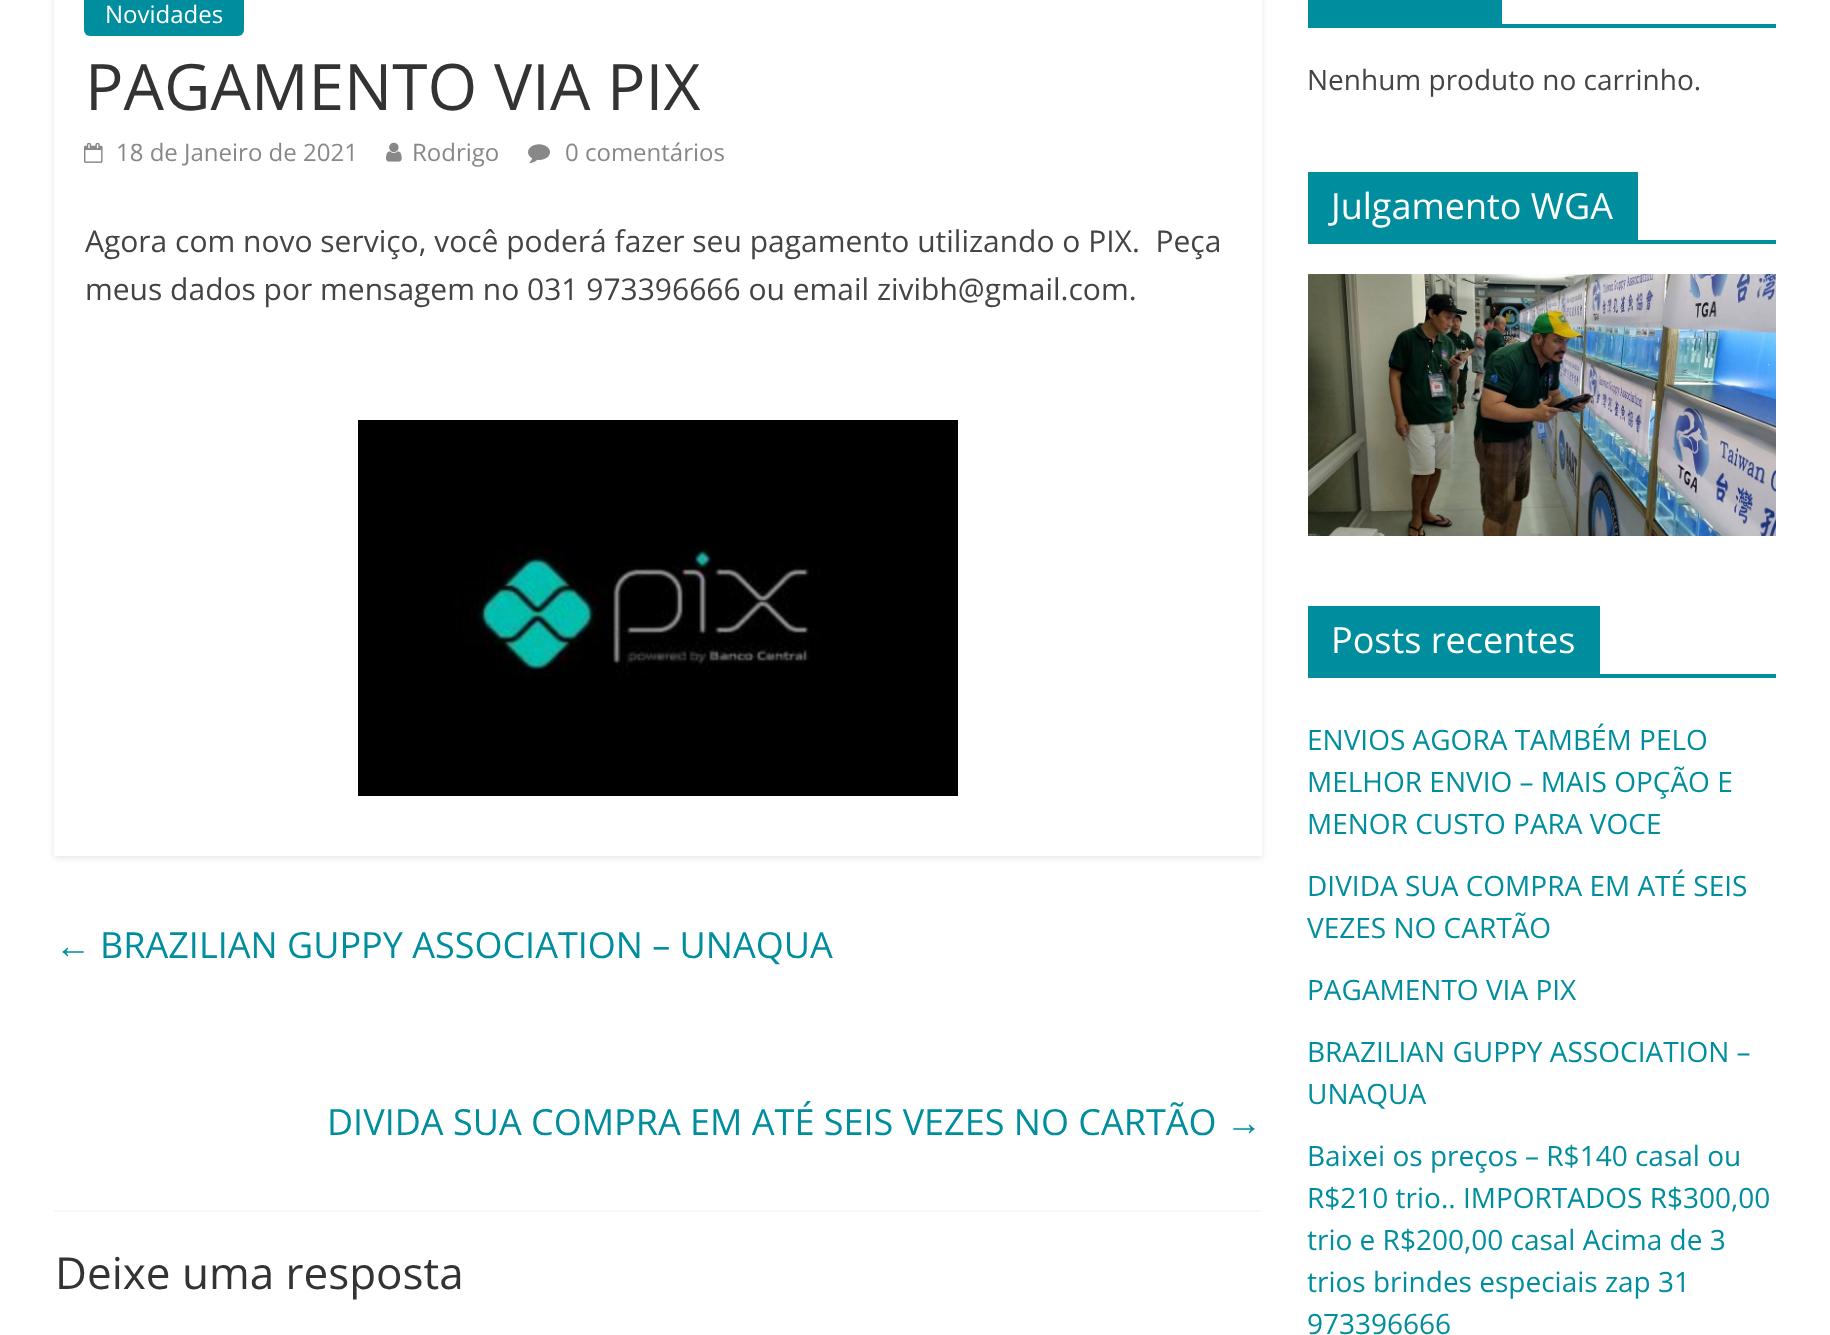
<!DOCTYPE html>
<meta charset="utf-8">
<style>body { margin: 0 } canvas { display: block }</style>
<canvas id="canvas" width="1830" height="1335"></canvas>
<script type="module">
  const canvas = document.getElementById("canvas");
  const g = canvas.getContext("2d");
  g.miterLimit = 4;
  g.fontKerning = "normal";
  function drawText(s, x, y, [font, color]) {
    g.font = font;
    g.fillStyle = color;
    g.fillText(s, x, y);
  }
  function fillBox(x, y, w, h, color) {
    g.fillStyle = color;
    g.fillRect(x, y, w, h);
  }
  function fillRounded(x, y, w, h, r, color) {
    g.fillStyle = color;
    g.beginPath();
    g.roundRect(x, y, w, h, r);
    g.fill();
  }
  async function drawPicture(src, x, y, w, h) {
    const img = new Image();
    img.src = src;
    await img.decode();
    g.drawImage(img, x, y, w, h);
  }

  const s1 = ["24px Open Sans", "#FFFFFF"];
  const s2 = ["64px Open Sans", "#333333"];
  const s3 = ["24px Open Sans", "#888888"];
  const s4 = ["30px Open Sans", "#444444"];
  const s5 = ["36px Liberation Serif", "#008E9E"];
  const s6 = ["36px Open Sans", "#008E9E"];
  const s7 = ["44px Open Sans", "#333333"];
  const s8 = ["28px Open Sans", "#444444"];
  const s9 = ["36px Open Sans", "#FFFFFF"];
  const s10 = ["28px Open Sans", "#008E9E"];

  fillBox(0, 0, 1830, 1335, "#FFFFFF");
  g.save();
  g.beginPath();
  g.moveTo(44, 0);
  g.lineTo(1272, 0);
  g.lineTo(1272, 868);
  g.lineTo(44, 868);
  g.closePath();
  g.moveTo(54, -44);
  g.lineTo(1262, -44);
  g.lineTo(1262, 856);
  g.lineTo(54, 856);
  g.closePath();
  g.clip("evenodd");
  g.fillStyle = "rgba(0, 0, 0, 0.1)";
  g.filter = "blur(3px)";
  g.beginPath();
  g.rect(54, -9, 1208, 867);
  g.fill();
  g.filter = "none";
  g.restore();
  fillRounded(84, -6, 160, 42, 6, "#008E9E");
  drawText("Novidades", 105, 23, s1);
  drawText("PAGAMENTO VIA PIX", 85, 110, s2);
  await drawPicture("pic1.png", 84, 142, 19, 21);
  drawText("18 de Janeiro de 2021", 116, 161, s3);
  await drawPicture("pic2.png", 386, 142, 16, 20);
  drawText("Rodrigo", 412, 161, s3);
  await drawPicture("pic3.png", 528, 144, 22, 20);
  drawText("0 comentários", 565, 161, s3);
  drawText("Agora com novo serviço, você poderá fazer seu pagamento utilizando o PIX.  Peça", 85, 252, s4);
  drawText("meus dados por mensagem no 031 973396666 ou email zivibh@gmail.com.", 85, 300, s4);
  await drawPicture("pic4.png", 358, 420, 600, 376);
  drawText("←", 55, 958, s5);
  drawText("BRAZILIAN GUPPY ASSOCIATION – UNAQUA", 100, 958, s6);
  drawText("DIVIDA SUA COMPRA EM ATÉ SEIS VEZES NO CARTÃO", 327, 1135, s6);
  drawText("→", 1226, 1135, s5);
  fillBox(54, 1210, 1208, 2, "#F8F8F8");
  drawText("Deixe uma resposta", 55, 1289, s7);
  fillBox(1308, 24, 468, 4, "#008E9E");
  fillBox(1308, 0, 194, 24, "#008E9E");
  drawText("Nenhum produto no carrinho.", 1307, 90, s8);
  fillBox(1308, 240, 468, 4, "#008E9E");
  fillBox(1308, 172, 330, 68, "#008E9E");
  drawText("Julgamento WGA", 1331, 219, s9);
  await drawPicture("pic5.png", 1308, 274, 468, 262);
  fillBox(1308, 674, 468, 4, "#008E9E");
  fillBox(1308, 606, 292, 68, "#008E9E");
  drawText("Posts recentes", 1331, 653, s9);
  drawText("ENVIOS AGORA TAMBÉM PELO", 1307, 750, s10);
  drawText("MELHOR ENVIO – MAIS OPÇÃO E", 1307, 792, s10);
  drawText("MENOR CUSTO PARA VOCE", 1307, 834, s10);
  drawText("DIVIDA SUA COMPRA EM ATÉ SEIS", 1307, 896, s10);
  drawText("VEZES NO CARTÃO", 1307, 938, s10);
  drawText("PAGAMENTO VIA PIX", 1307, 1000, s10);
  drawText("BRAZILIAN GUPPY ASSOCIATION –", 1307, 1062, s10);
  drawText("UNAQUA", 1307, 1104, s10);
  drawText("Baixei os preços – R$140 casal ou", 1307, 1166, s10);
  drawText("R$210 trio.. IMPORTADOS R$300,00", 1307, 1208, s10);
  drawText("trio e R$200,00 casal Acima de 3", 1307, 1250, s10);
  drawText("trios brindes especiais zap 31", 1307, 1292, s10);
  drawText("973396666", 1307, 1334, s10);
</script>
